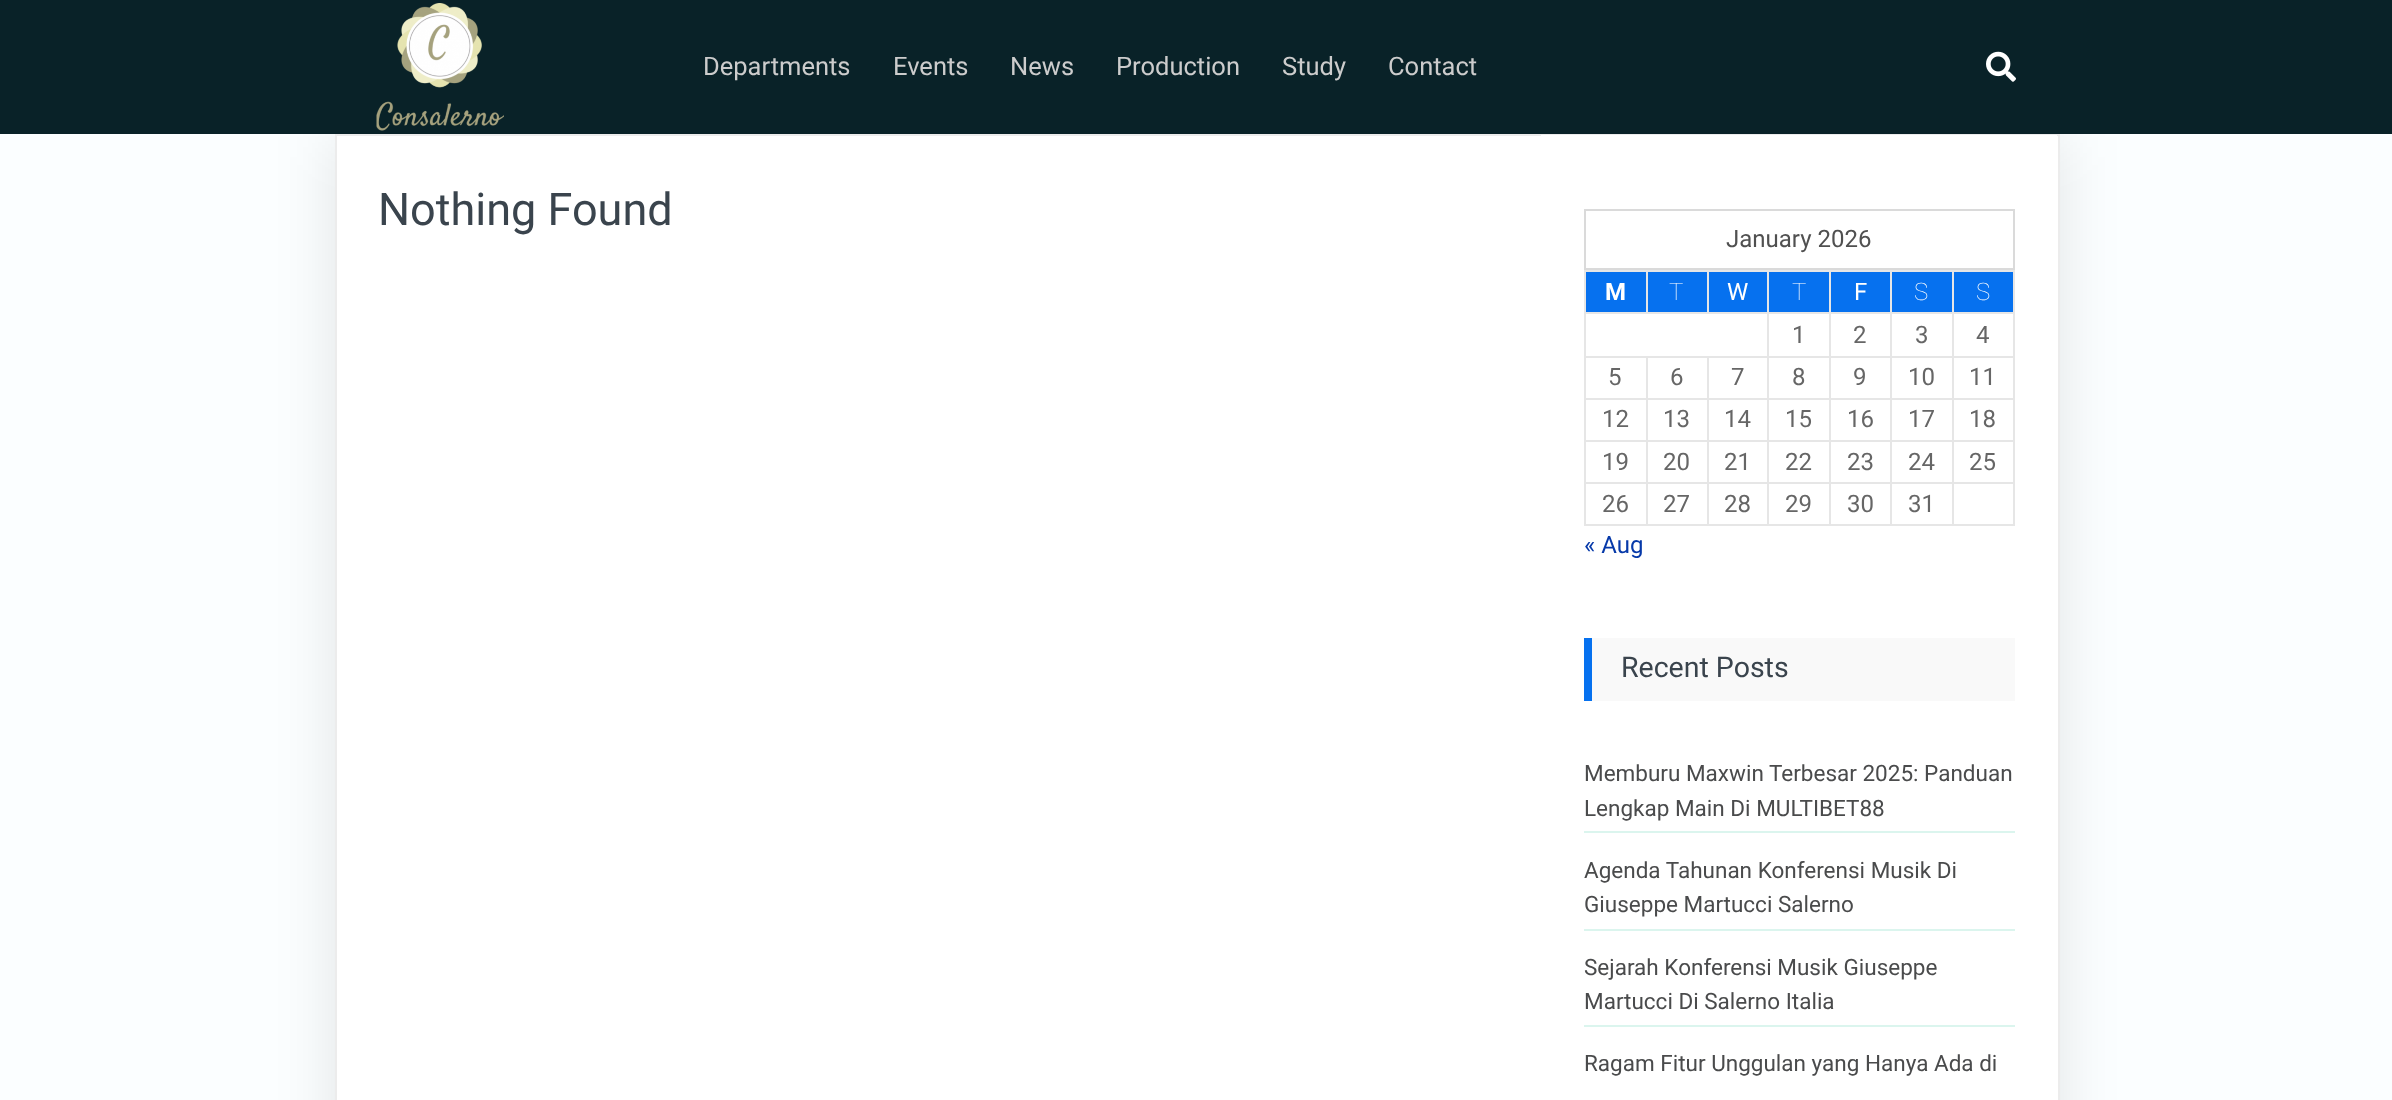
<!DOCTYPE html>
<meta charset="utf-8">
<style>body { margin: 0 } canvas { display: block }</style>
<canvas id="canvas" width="2392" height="1100"></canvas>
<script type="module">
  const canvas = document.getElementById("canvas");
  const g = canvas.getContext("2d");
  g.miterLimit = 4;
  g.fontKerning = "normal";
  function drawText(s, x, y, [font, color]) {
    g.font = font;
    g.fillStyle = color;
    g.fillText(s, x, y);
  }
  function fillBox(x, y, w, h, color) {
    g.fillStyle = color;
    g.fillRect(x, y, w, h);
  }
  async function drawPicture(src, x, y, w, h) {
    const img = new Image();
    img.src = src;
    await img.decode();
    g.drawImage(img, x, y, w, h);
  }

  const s1 = ["25.5px Roboto", "#CCCCCC"];
  const s2 = ["45px Roboto", "#3A444D"];
  const s3 = ["24px Roboto", "#505050"];
  const s4 = ["bold 24px Roboto", "#FFFFFF"];
  const s5 = ["100 24px Roboto", "#FFFFFF"];
  const s6 = ["24px Roboto", "#FFFFFF"];
  const s7 = ["24px Roboto", "#666666"];
  const s8 = ["24px Roboto", "#0639A9"];
  const s9 = ["28.5px Roboto", "#3A444D"];
  const s10 = ["22.5px Roboto", "#4A4B4C"];

  fillBox(0, 0, 2392, 1100, "#FBFEFF");
  g.fillStyle = "rgba(0, 0, 0, 0.1)";
  g.filter = "blur(30px)";
  g.beginPath();
  g.rect(335, 137, 1725, 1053);
  g.fill();
  g.filter = "none";
  fillBox(0, 0, 2392, 134, "#092228");
  await drawPicture("pic1.png", 376, 3, 128, 128);
  drawText("Departments", 703, 75, s1);
  drawText("Events", 893, 75, s1);
  drawText("News", 1010, 75, s1);
  drawText("Production", 1116, 75, s1);
  drawText("Study", 1282, 75, s1);
  drawText("Contact", 1388, 75, s1);
  await drawPicture("pic2.png", 1986, 51, 30, 31);
  g.fillStyle = "#FFFFFF";
  g.beginPath();
  g.rect(336, 135, 1723, 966);
  g.fill();
  g.strokeStyle = "#ECECEC";
  g.lineWidth = 2;
  g.stroke();
  drawText("Nothing Found", 378, 225, s2);
  fillBox(1541, 135, 516, 1, "#FFFFFF");
  g.strokeStyle = "#DADADA";
  g.strokeRect(1585, 210, 429, 59);
  drawText("January 2026", 1726, 247, s3);
  fillBox(1584, 270, 431, 2, "#E6E6E6");
  fillBox(1584, 312, 431, 2, "#E6E6E6");
  fillBox(1584, 356, 431, 2, "#E6E6E6");
  fillBox(1584, 398, 431, 2, "#E6E6E6");
  fillBox(1584, 440, 431, 2, "#E6E6E6");
  fillBox(1584, 482, 431, 2, "#E6E6E6");
  fillBox(2013, 482, 2, 43, "#E6E6E6");
  fillBox(2013, 440, 2, 43, "#E6E6E6");
  fillBox(2013, 398, 2, 43, "#E6E6E6");
  fillBox(2013, 356, 2, 43, "#E6E6E6");
  fillBox(2013, 312, 2, 45, "#E6E6E6");
  fillBox(2013, 270, 2, 44, "#E6E6E6");
  fillBox(1584, 524, 431, 2, "#E6E6E6");
  fillBox(1584, 482, 2, 43, "#E6E6E6");
  fillBox(1584, 440, 2, 43, "#E6E6E6");
  fillBox(1584, 398, 2, 43, "#E6E6E6");
  fillBox(1584, 356, 2, 43, "#E6E6E6");
  fillBox(1584, 312, 2, 45, "#E6E6E6");
  fillBox(1584, 270, 2, 44, "#E6E6E6");
  fillBox(1586, 272, 60, 40, "#0671EF");
  drawText("M", 1605, 300, s4);
  fillBox(1648, 272, 59, 40, "#0671EF");
  fillBox(1646, 270, 2, 44, "#E6E6E6");
  drawText("T", 1669, 300, s5);
  fillBox(1709, 272, 58, 40, "#0671EF");
  fillBox(1707, 270, 2, 44, "#E6E6E6");
  drawText("W", 1727, 300, s6);
  fillBox(1769, 272, 60, 40, "#0671EF");
  drawText("T", 1792, 300, s5);
  fillBox(1831, 272, 59, 40, "#0671EF");
  drawText("F", 1854, 300, s6);
  fillBox(1892, 272, 60, 40, "#0671EF");
  drawText("S", 1914, 300, s5);
  fillBox(1954, 272, 59, 40, "#0671EF");
  drawText("S", 1976, 300, s5);
  drawText("1", 1792, 343, s7);
  drawText("2", 1853, 343, s7);
  drawText("3", 1915, 343, s7);
  drawText("4", 1976, 343, s7);
  drawText("5", 1608, 385, s7);
  drawText("6", 1670, 385, s7);
  drawText("7", 1731, 385, s7);
  drawText("8", 1792, 385, s7);
  drawText("9", 1853, 385, s7);
  drawText("10", 1908, 385, s7);
  drawText("11", 1969, 385, s7);
  drawText("12", 1602, 427, s7);
  drawText("13", 1663, 427, s7);
  drawText("14", 1724, 427, s7);
  drawText("15", 1785, 427, s7);
  drawText("16", 1847, 427, s7);
  drawText("17", 1908, 427, s7);
  drawText("18", 1969, 427, s7);
  drawText("19", 1602, 470, s7);
  drawText("20", 1663, 470, s7);
  drawText("21", 1724, 470, s7);
  drawText("22", 1785, 470, s7);
  drawText("23", 1847, 470, s7);
  drawText("24", 1908, 470, s7);
  drawText("25", 1969, 470, s7);
  drawText("26", 1602, 512, s7);
  fillBox(1646, 356, 2, 169, "#E6E6E6");
  drawText("27", 1663, 512, s7);
  fillBox(1707, 356, 2, 169, "#E6E6E6");
  drawText("28", 1724, 512, s7);
  fillBox(1767, 270, 2, 255, "#E6E6E6");
  drawText("29", 1785, 512, s7);
  fillBox(1829, 270, 2, 255, "#E6E6E6");
  drawText("30", 1847, 512, s7);
  fillBox(1890, 270, 2, 255, "#E6E6E6");
  drawText("31", 1908, 512, s7);
  fillBox(1952, 270, 2, 255, "#E6E6E6");
  drawText("« Aug", 1584, 553, s8);
  fillBox(1592, 638, 423, 63, "#F9F9F9");
  fillBox(1584, 638, 8, 63, "#0671EF");
  drawText("Recent Posts", 1621, 677, s9);
  fillBox(1584, 831, 431, 2, "#DBF5EE");
  drawText("Memburu Maxwin Terbesar 2025: Panduan", 1584, 781, s10);
  drawText("Lengkap Main Di MULTIBET88", 1584, 816, s10);
  fillBox(1584, 929, 431, 2, "#DBF5EE");
  drawText("Agenda Tahunan Konferensi Musik Di", 1584, 878, s10);
  drawText("Giuseppe Martucci Salerno", 1584, 912, s10);
  fillBox(1584, 1025, 431, 2, "#DBF5EE");
  drawText("Sejarah Konferensi Musik Giuseppe", 1584, 975, s10);
  drawText("Martucci Di Salerno Italia", 1584, 1009, s10);
  drawText("Ragam Fitur Unggulan yang Hanya Ada di", 1584, 1071, s10);
</script>
